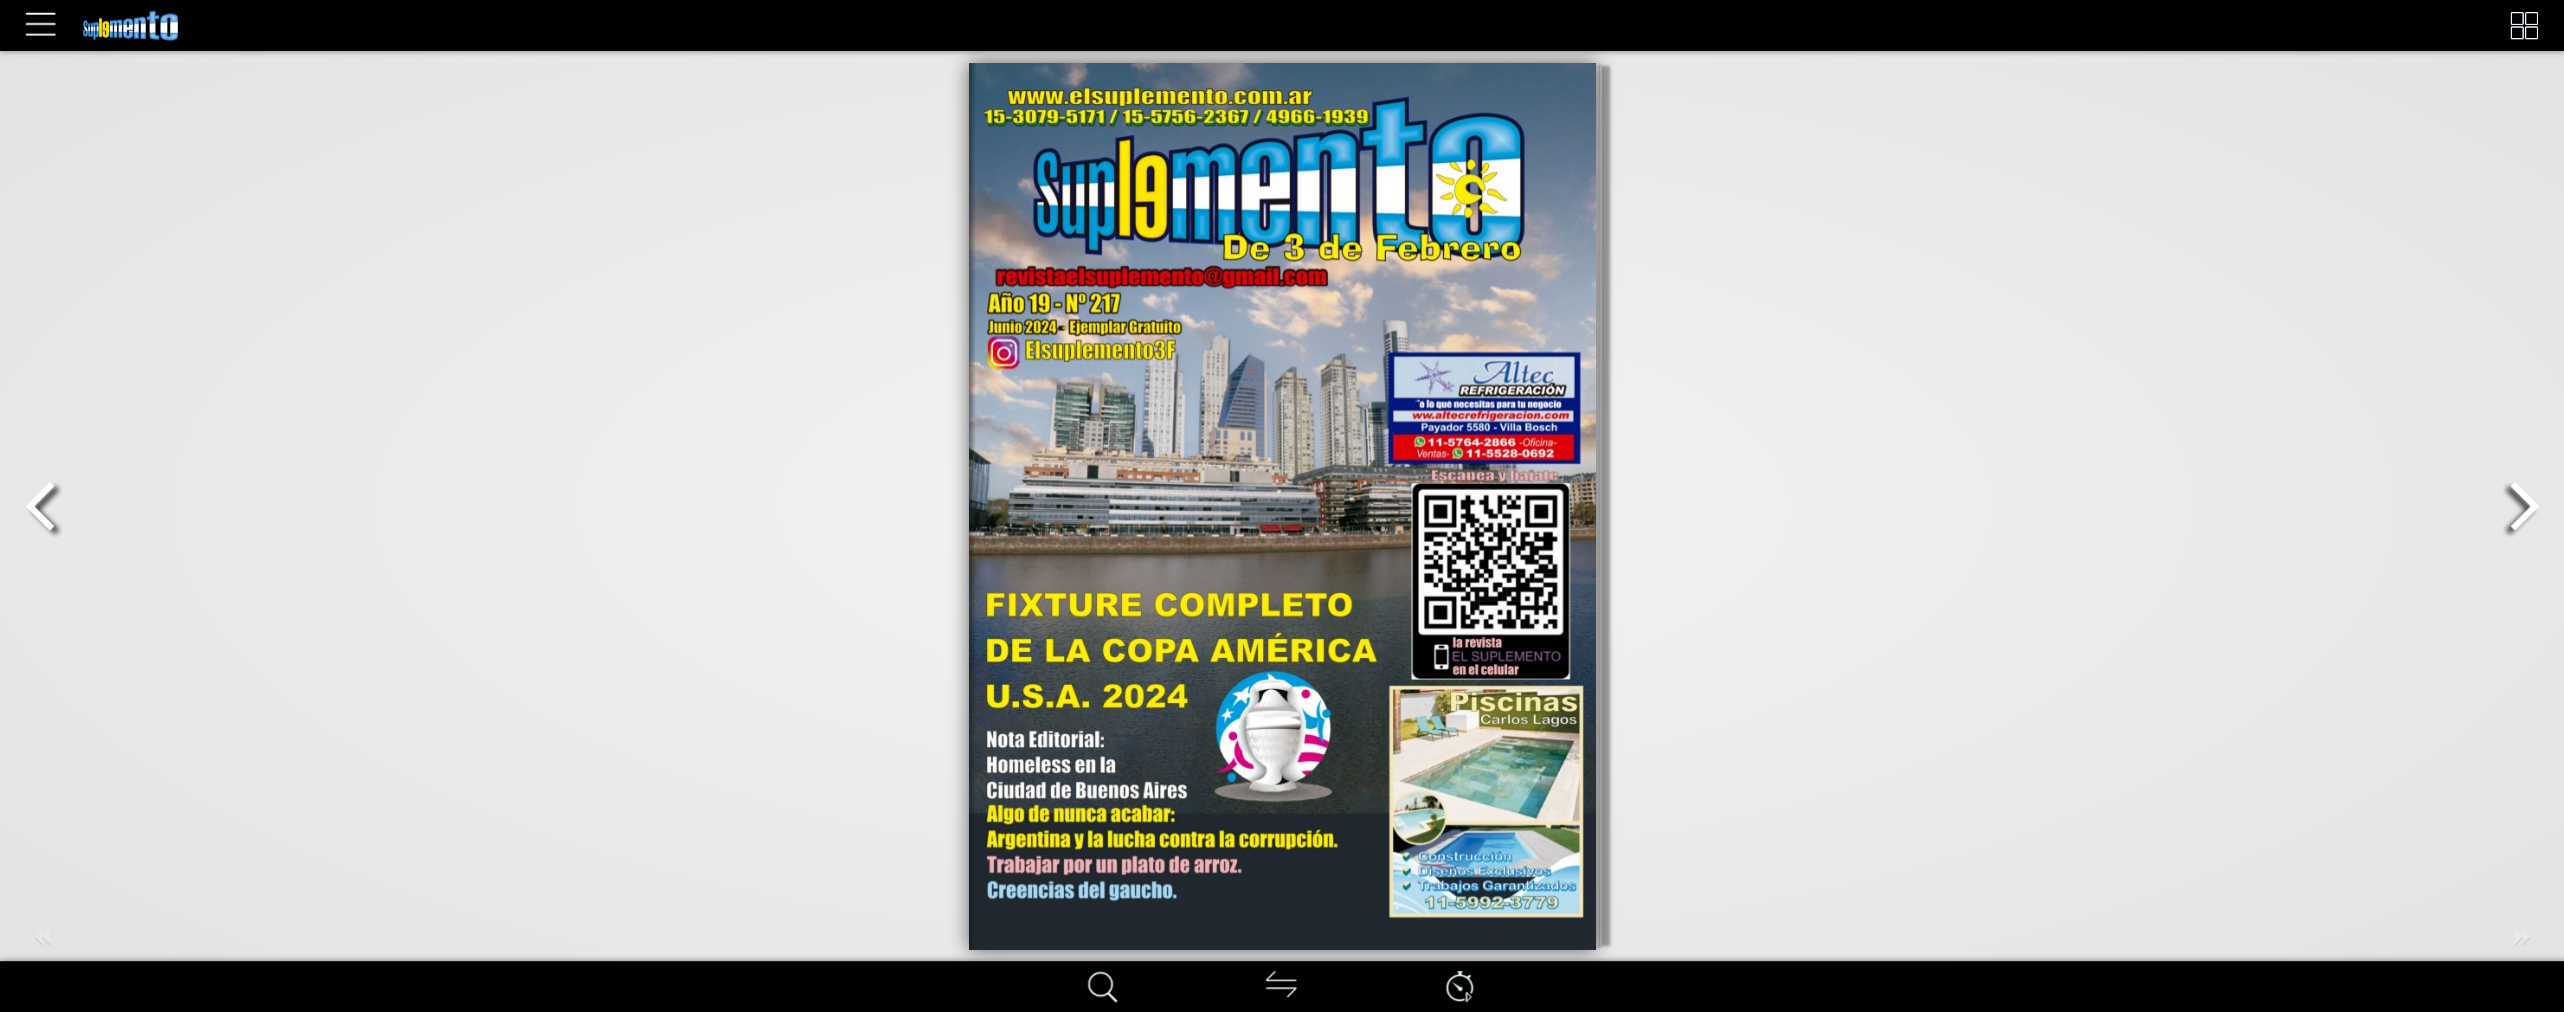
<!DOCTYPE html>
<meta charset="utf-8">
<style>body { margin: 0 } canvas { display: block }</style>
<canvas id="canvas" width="2564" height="1012"></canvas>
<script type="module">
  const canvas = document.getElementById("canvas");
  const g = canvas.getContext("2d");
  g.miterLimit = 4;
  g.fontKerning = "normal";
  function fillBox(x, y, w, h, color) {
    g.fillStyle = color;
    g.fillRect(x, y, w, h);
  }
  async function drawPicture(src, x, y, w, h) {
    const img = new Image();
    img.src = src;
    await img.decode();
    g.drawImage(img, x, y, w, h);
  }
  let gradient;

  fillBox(0, 0, 2564, 1012, "#FFFFFF");
  gradient = g.createRadialGradient(1283, 1281.96, 0, 1283, 1281.96, 1814);
  gradient.addColorStop(0, "#F4F4F4");
  gradient.addColorStop(1, "#E2E2E2");
  g.fillStyle = gradient;
  g.beginPath();
  g.rect(0, 51, 2564, 910);
  g.save();
  g.clip();
  g.scale(1, 716 / 1814);
  g.fillRect(0, 0, 2564, 2564);
  g.restore();
  g.fillStyle = "rgba(40, 0, 0, 0.5)";
  g.filter = "blur(3px)";
  g.beginPath();
  g.rect(0, 0, 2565, 51);
  g.fill();
  g.filter = "none";
  g.fillStyle = "rgba(125, 125, 125, 0.7)";
  g.filter = "blur(1.5px)";
  g.beginPath();
  g.rect(1593, 66, 17, 880);
  g.fill();
  g.filter = "none";
  await drawPicture("pic5.png", 969, 949, 627, 1);
  await drawPicture("pic6.png", 1596, 63, 6, 62);
  await drawPicture("pic7.png", 1596, 125, 6, 763);
  await drawPicture("pic8.png", 1595, 888, 7, 62);
  g.fillStyle = "rgba(40, 40, 40, 0.7)";
  g.filter = "blur(9.5px)";
  g.beginPath();
  g.rect(969, 63, 627, 887);
  g.fill();
  g.filter = "none";
  fillBox(0, 0, 2564, 51, "#000000");
  await drawPicture("pic1.png", 25, 12, 31, 24);
  await drawPicture("pic2.png", 82, 10, 97, 31);
  await drawPicture("pic3.png", 2510, 12, 28, 28);
  await drawPicture("pic9.png", 969, 949, 627, 1);
  await drawPicture("pic4.png", 969, 63, 627, 887);
  gradient = g.createLinearGradient(969, 506, 976, 506);
  gradient.addColorStop(0, "rgba(20, 20, 20, 0.5)");
  gradient.addColorStop(1, "rgba(20, 20, 20, 0)");
  g.fillStyle = gradient;
  g.fillRect(969, 63, 7, 887);
  await drawPicture("pic10.png", 26, 482, 37, 56);
  await drawPicture("pic11.png", 2502, 482, 37, 56);
  await drawPicture("pic12.png", 35, 930, 15, 15);
  await drawPicture("pic13.png", 2515, 930, 15, 15);
  g.fillStyle = "rgba(40, 0, 0, 0.5)";
  g.filter = "blur(3px)";
  g.beginPath();
  g.rect(0, 961, 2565, 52);
  g.fill();
  g.filter = "none";
  fillBox(0, 962, 2564, 50, "#000000");
  fillBox(0, 961, 2564, 1, "#1E1E1E");
  await drawPicture("pic14.png", 1087, 971, 31, 33);
  await drawPicture("pic15.png", 1265, 971, 32, 27);
  await drawPicture("pic16.png", 1446, 971, 28, 32);
</script>
